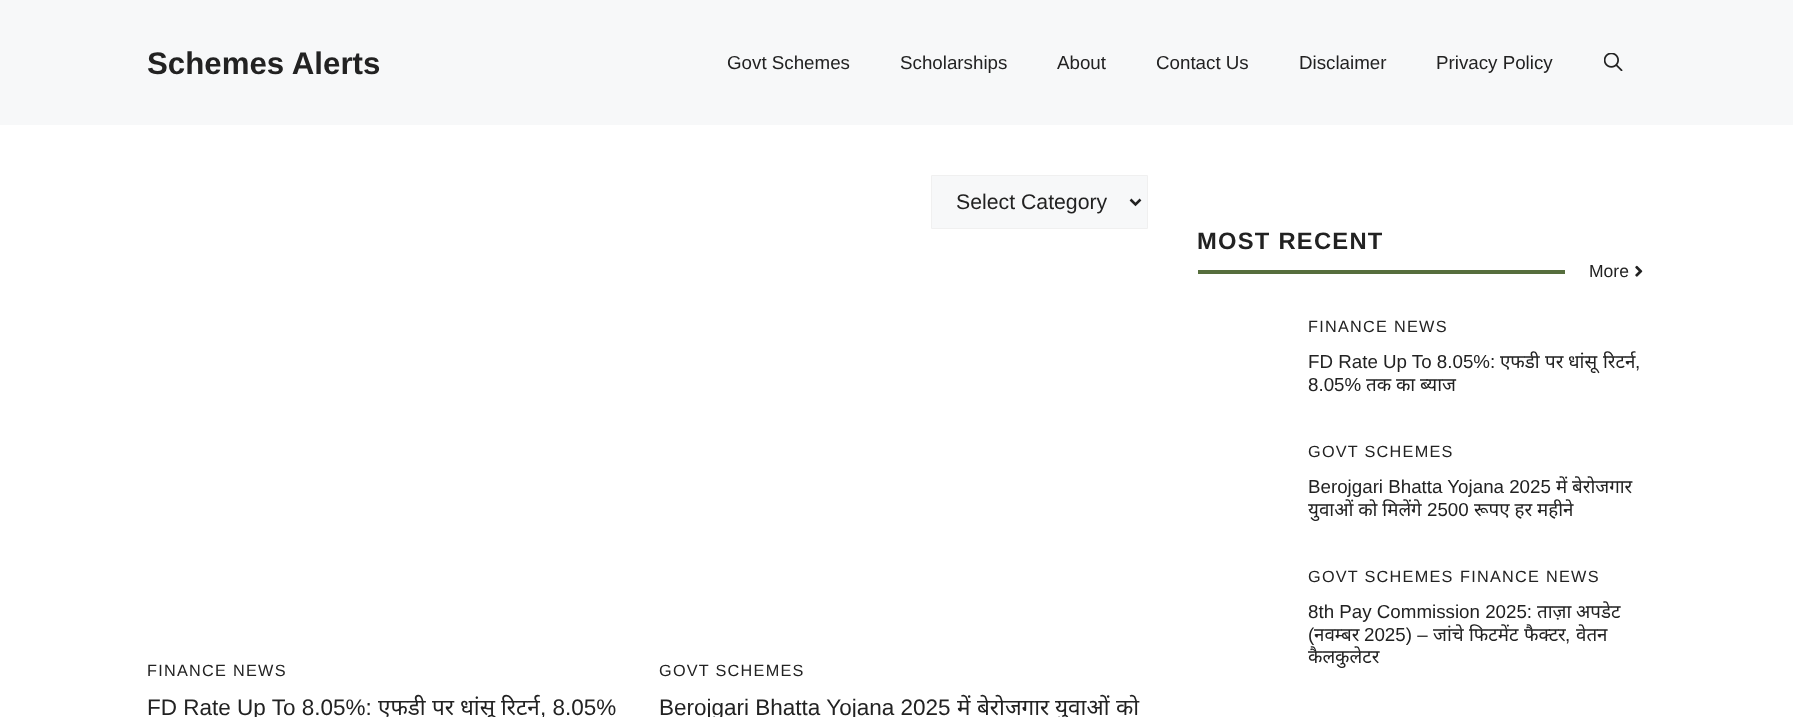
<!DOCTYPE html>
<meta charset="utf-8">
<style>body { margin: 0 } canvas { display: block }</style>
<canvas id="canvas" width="1793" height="717"></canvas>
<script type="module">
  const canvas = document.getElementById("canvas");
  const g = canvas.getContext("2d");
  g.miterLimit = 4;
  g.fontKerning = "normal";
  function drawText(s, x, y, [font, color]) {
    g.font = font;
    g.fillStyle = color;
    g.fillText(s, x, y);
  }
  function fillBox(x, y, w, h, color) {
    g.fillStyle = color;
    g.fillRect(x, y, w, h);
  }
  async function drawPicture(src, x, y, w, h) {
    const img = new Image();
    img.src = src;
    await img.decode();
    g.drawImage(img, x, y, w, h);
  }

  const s1 = ["bold 31.25px Liberation Sans", "#222222"];
  const s2 = ["18.75px Liberation Sans", "#222222"];
  const s3 = ["21.25px Liberation Sans", "#222222"];
  const s4 = ["16.25px Liberation Sans", "#222222"];
  const s5 = ["22.5px Liberation Sans", "#222222"];
  const s6 = ["22.5px Noto Sans", "#222222"];
  const s7 = ["bold 23.75px Liberation Sans", "#222222"];
  const s8 = ["17.5px Liberation Sans", "#222222"];
  const s9 = ["18.75px Noto Sans", "#222222"];

  fillBox(0, 0, 1793, 717, "#FFFFFF");
  fillBox(0, 0, 1793, 125, "#F7F8F9");
  drawText("Schemes Alerts", 147, 74, s1);
  drawText("Govt Schemes", 727, 69, s2);
  drawText("Scholarships", 900, 69, s2);
  drawText("About", 1057, 69, s2);
  drawText("Contact Us", 1156, 69, s2);
  drawText("Disclaimer", 1299, 69, s2);
  drawText("Privacy Policy", 1436, 69, s2);
  await drawPicture("pic1.png", 1604, 53, 19, 18);
  g.fillStyle = "#F7F8F9";
  g.beginPath();
  g.rect(931.5, 175.5, 216, 53);
  g.fill();
  g.strokeStyle = "#F0F0F0";
  g.stroke();
  g.beginPath();
  g.moveTo(1130.5, 199.5);
  g.lineTo(1135.5, 204.5);
  g.lineTo(1140.5, 199.5);
  g.strokeStyle = "#222222";
  g.lineWidth = 2.5;
  g.stroke();
  drawText("Select Category", 956, 209, s3);
  g.letterSpacing = "1.25px";
  drawText("FINANCE", 147, 676, s4);
  drawText("NEWS", 233, 676, s4);
  g.letterSpacing = "0px";
  drawText("FD Rate Up To 8.05%:", 147, 715, s5);
  drawText("एफडी", 378, 715, s6);
  drawText("पर", 432, 715, s6);
  drawText("धांसू", 460, 715, s6);
  drawText("रिटर्न", 501, 715, s6);
  drawText(", 8.05%", 540, 715, s5);
  g.letterSpacing = "1.25px";
  drawText("GOVT SCHEMES", 659, 676, s4);
  g.letterSpacing = "0px";
  drawText("Berojgari Bhatta Yojana 2025", 659, 715, s5);
  drawText("में", 957, 715, s6);
  drawText("बेरोजगार", 977, 715, s6);
  drawText("युवाओं", 1055, 715, s6);
  drawText("को", 1116, 715, s6);
  g.letterSpacing = "1.25px";
  drawText("MOST RECENT", 1197, 249, s7);
  fillBox(1198, 270, 367, 4, "#566E3D");
  g.letterSpacing = "0px";
  drawText("More", 1589, 277, s8);
  await drawPicture("pic2.png", 1635, 265, 8, 12);
  g.letterSpacing = "1.25px";
  drawText("FINANCE", 1308, 332, s4);
  drawText("NEWS", 1394, 332, s4);
  g.letterSpacing = "0px";
  drawText("FD Rate Up To 8.05%:", 1308, 368, s2);
  drawText("एफडी", 1500, 368, s9);
  drawText("पर", 1545, 368, s9);
  drawText("धांसू", 1568, 368, s9);
  drawText("रिटर्न", 1603, 368, s9);
  drawText(",", 1635, 368, s2);
  drawText("8.05%", 1308, 391, s2);
  drawText("तक का ब्याज", 1366, 391, s9);
  g.letterSpacing = "1.25px";
  drawText("GOVT SCHEMES", 1308, 457, s4);
  g.letterSpacing = "0px";
  drawText("Berojgari Bhatta Yojana 2025", 1308, 493, s2);
  drawText("में", 1556, 493, s9);
  drawText("बेरोजगार", 1572, 493, s9);
  drawText("युवाओं को मिलेंगे", 1308, 516, s9);
  drawText("2500", 1427, 516, s2);
  drawText("रूपए हर महीने", 1474, 516, s9);
  g.letterSpacing = "1.25px";
  drawText("GOVT SCHEMES", 1308, 582, s4);
  drawText("FINANCE", 1460, 582, s4);
  drawText("NEWS", 1546, 582, s4);
  g.letterSpacing = "0px";
  drawText("8th Pay Commission 2025:", 1308, 618, s2);
  drawText("ताज़ा", 1537, 618, s9);
  drawText("अपडेट", 1576, 618, s9);
  drawText("(", 1308, 641, s2);
  drawText("नवम्बर", 1314, 641, s9);
  drawText("2025) –", 1364, 641, s2);
  drawText("जांचे", 1433, 641, s9);
  drawText("फिटमेंट", 1469, 641, s9);
  drawText("फैक्टर", 1524, 641, s9);
  drawText(",", 1565, 641, s2);
  drawText("वेतन", 1576, 641, s9);
  drawText("कैलकुलेटर", 1308, 663, s9);
</script>
